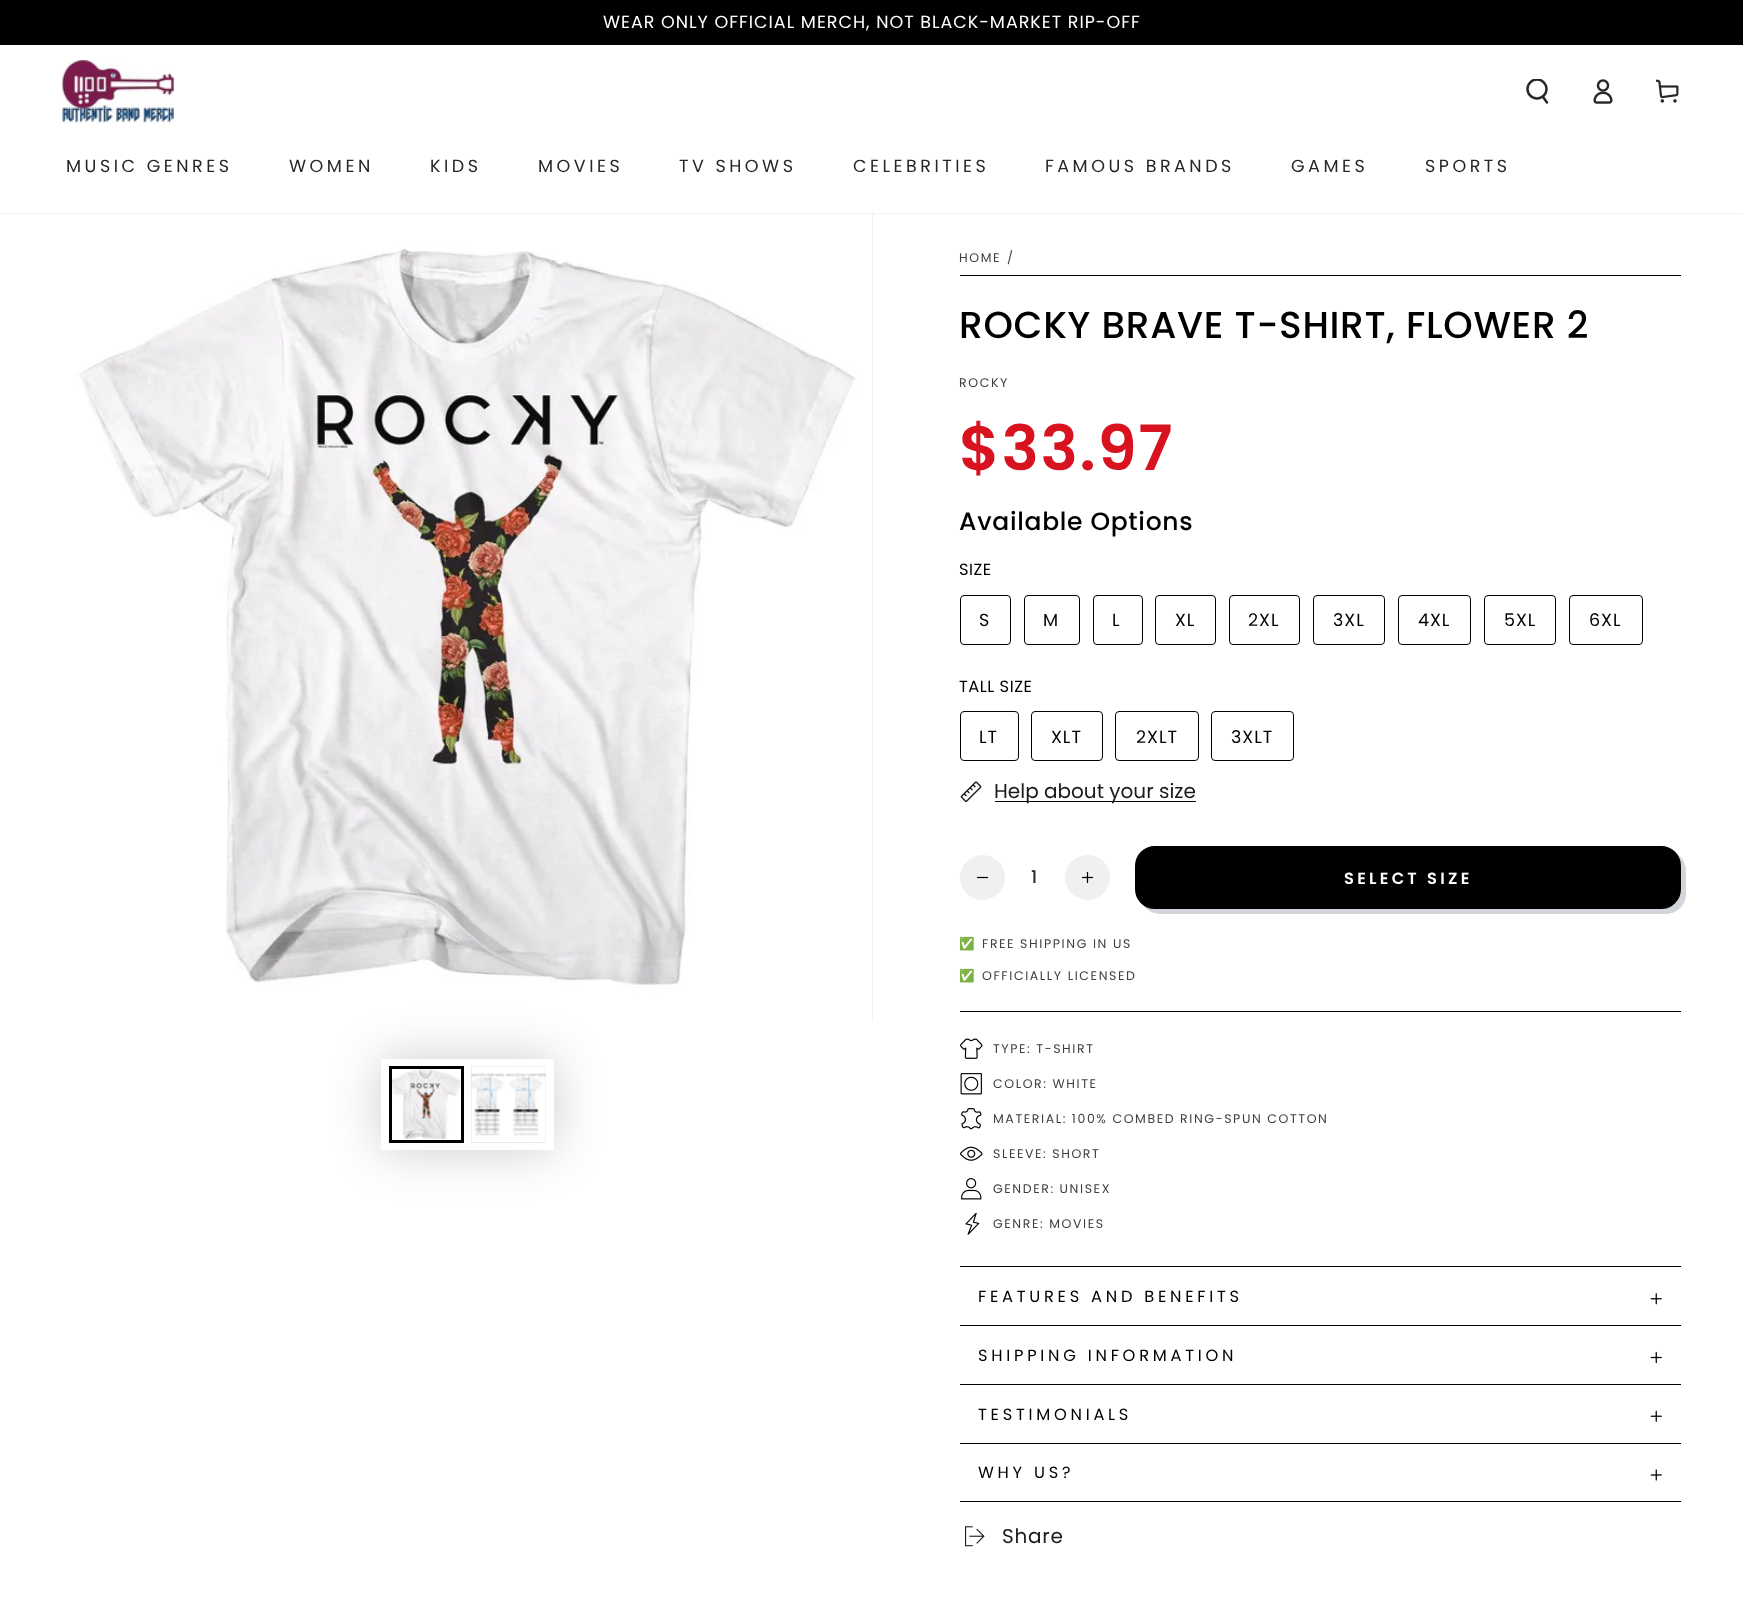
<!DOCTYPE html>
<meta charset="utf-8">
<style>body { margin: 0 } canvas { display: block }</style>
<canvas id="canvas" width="1743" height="1619"></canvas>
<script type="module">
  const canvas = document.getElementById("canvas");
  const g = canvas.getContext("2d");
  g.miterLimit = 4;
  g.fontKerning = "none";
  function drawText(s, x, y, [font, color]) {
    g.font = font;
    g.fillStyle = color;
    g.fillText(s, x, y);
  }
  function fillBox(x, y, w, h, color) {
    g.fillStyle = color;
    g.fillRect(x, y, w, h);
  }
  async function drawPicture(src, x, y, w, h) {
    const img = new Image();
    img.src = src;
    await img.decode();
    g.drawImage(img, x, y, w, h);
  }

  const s1 = ["17.5px Poppins", "#FFFFFF"];
  const s2 = ["17.5px Poppins", "#262626"];
  const s3 = ["12.5px Poppins", "#404040"];
  const s4 = ["500 37.5px Poppins", "#000000"];
  const s5 = ["600 62.5px Poppins", "#D9121F"];
  const s6 = ["500 25px Poppins", "#000000"];
  const s7 = ["16.25px Poppins", "#000000"];
  const s8 = ["17.5px Poppins", "#000000"];
  const s9 = ["20px Poppins", "#1A1B18"];
  const s10 = ["500 17.5px Poppins", "#262626"];
  const s11 = ["600 16.25px Poppins", "#FFFFFF"];
  const s12 = ["12.5px Noto Color Emoji", "#404040"];

  fillBox(0, 0, 1743, 1619, "#FFFFFF");
  fillBox(0, 0, 1743, 45, "#000000");
  g.letterSpacing = "0.98px";
  drawText("WEAR ONLY OFFICIAL MERCH, NOT BLACK-MARKET RIP-OFF", 603, 28, s1);
  fillBox(872, 213, 1, 808, "#F3F3F3");
  await drawPicture("pic4.png", 63, 213, 809, 808);
  g.fillStyle = "rgba(210, 213, 217, 0.3)";
  g.beginPath();
  g.moveTo(0, 212);
  g.lineTo(0, 214);
  g.lineTo(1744, 214);
  g.lineTo(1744, 46);
  g.lineTo(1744, 212);
  g.closePath();
  g.fill();
  await drawPicture("pic1.png", 62, 60, 112, 63);
  g.save();
  g.beginPath();
  g.rect(1525, 79, 25, 25);
  g.clip();
  g.beginPath();
  g.arc(1537, 89, 9.5, 0, Math.PI * 2);
  g.strokeStyle = "#282828";
  g.lineWidth = 2.5;
  g.stroke();
  g.restore();
  g.beginPath();
  g.moveTo(1543, 97);
  g.lineTo(1547, 102.5);
  g.strokeStyle = "#282828";
  g.lineWidth = 2.5;
  g.lineCap = "round";
  g.stroke();
  await drawPicture("pic2.png", 1593, 79, 20, 25);
  await drawPicture("pic3.png", 1656, 79, 23, 24);
  g.letterSpacing = "3.5px";
  drawText("MUSIC GENRES", 66, 172, s2);
  drawText("WOMEN", 289, 172, s2);
  drawText("KIDS", 430, 172, s2);
  drawText("MOVIES", 538, 172, s2);
  drawText("TV SHOWS", 679, 172, s2);
  drawText("CELEBRITIES", 853, 172, s2);
  drawText("FAMOUS BRANDS", 1045, 172, s2);
  drawText("GAMES", 1291, 172, s2);
  drawText("SPORTS", 1425, 172, s2);
  fillBox(0, 212, 1743, 1, "#FFFFFF");
  g.fillStyle = "rgba(0, 0, 0, 0.2)";
  g.filter = "blur(25px)";
  g.beginPath();
  g.rect(381, 1059, 173, 91);
  g.fill();
  g.filter = "none";
  fillBox(381, 1059, 173, 91, "#FFFFFF");
  await drawPicture("pic5.png", 392, 1069, 69, 71);
  g.strokeStyle = "#000000";
  g.lineWidth = 3;
  g.strokeRect(390.5, 1067.5, 72, 74);
  fillBox(471, 1066, 75, 77, "#F3F3F3");
  await drawPicture("pic6.png", 471, 1066, 75, 76);
  g.strokeStyle = "rgba(0, 0, 0, 0.04)";
  g.lineWidth = 1;
  g.strokeRect(471.5, 1066.5, 74, 76);
  fillBox(960, 275, 721, 1, "#030303");
  g.letterSpacing = "1.6px";
  drawText("HOME", 959, 262, s3);
  drawText("/", 1007, 262, s3);
  g.letterSpacing = "0.7px";
  drawText("ROCKY BRAVE T-SHIRT, FLOWER 2", 959, 338, s4);
  g.letterSpacing = "1.6px";
  drawText("ROCKY", 959, 387, s3);
  drawText("$33.97", 959, 470, s5);
  g.letterSpacing = "0.7px";
  drawText("Available Options", 959, 530, s6);
  g.letterSpacing = "0.5px";
  drawText("SIZE", 959, 575, s7);
  g.beginPath();
  g.roundRect(960.5, 595.5, 50, 49, 3.5);
  g.strokeStyle = "#030303";
  g.stroke();
  g.letterSpacing = "1px";
  drawText("S", 979, 626, s8);
  g.beginPath();
  g.roundRect(1024.5, 595.5, 55, 49, 3.5);
  g.stroke();
  drawText("M", 1043, 626, s8);
  g.beginPath();
  g.roundRect(1093.5, 595.5, 49, 49, 3.5);
  g.stroke();
  drawText("L", 1112, 626, s8);
  g.beginPath();
  g.roundRect(1155.5, 595.5, 60, 49, 3.5);
  g.stroke();
  drawText("XL", 1175, 626, s8);
  g.beginPath();
  g.roundRect(1229.5, 595.5, 70, 49, 3.5);
  g.stroke();
  drawText("2XL", 1248, 626, s8);
  g.beginPath();
  g.roundRect(1313.5, 595.5, 71, 49, 3.5);
  g.stroke();
  drawText("3XL", 1333, 626, s8);
  g.beginPath();
  g.roundRect(1398.5, 595.5, 72, 49, 3.5);
  g.stroke();
  drawText("4XL", 1418, 626, s8);
  g.beginPath();
  g.roundRect(1484.5, 595.5, 71, 49, 3.5);
  g.stroke();
  drawText("5XL", 1504, 626, s8);
  g.beginPath();
  g.roundRect(1569.5, 595.5, 73, 49, 3.5);
  g.stroke();
  drawText("6XL", 1589, 626, s8);
  g.letterSpacing = "0.5px";
  drawText("TALL SIZE", 959, 692, s7);
  g.beginPath();
  g.roundRect(960.5, 711.5, 58, 49, 3.5);
  g.stroke();
  g.letterSpacing = "1px";
  drawText("LT", 979, 743, s8);
  g.beginPath();
  g.roundRect(1031.5, 711.5, 71, 49, 3.5);
  g.stroke();
  drawText("XLT", 1051, 743, s8);
  g.beginPath();
  g.roundRect(1115.5, 711.5, 83, 49, 3.5);
  g.stroke();
  drawText("2XLT", 1136, 743, s8);
  g.beginPath();
  g.roundRect(1211.5, 711.5, 82, 49, 3.5);
  g.stroke();
  drawText("3XLT", 1231, 743, s8);
  await drawPicture("pic7.png", 960, 781, 22, 22);
  fillBox(995, 801, 201, 1, "#030303");
  g.letterSpacing = "0px";
  drawText("Help about your size", 994, 798, s9);
  g.fillStyle = "#F0F0F0";
  g.beginPath();
  g.arc(982.5, 877.5, 22.5, 0, Math.PI * 2);
  g.fill();
  await drawPicture("pic8.png", 976, 876, 13, 3);
  drawText("1", 1031, 883, s10);
  g.fillStyle = "#F0F0F0";
  g.beginPath();
  g.arc(1087.5, 877.5, 22.5, 0, Math.PI * 2);
  g.fill();
  await drawPicture("pic9.png", 1081, 871, 13, 13);
  g.fillStyle = "#D2D5D9";
  g.beginPath();
  g.moveTo(1143, 905);
  g.bezierCurveTo(1147, 910, 1153, 914, 1160, 914);
  g.lineTo(1666, 914);
  g.bezierCurveTo(1677, 914, 1686, 905, 1686, 894);
  g.lineTo(1686, 871);
  g.bezierCurveTo(1686, 864, 1683, 858, 1678, 855);
  g.bezierCurveTo(1680, 858, 1681, 862, 1681, 866);
  g.lineTo(1681, 889);
  g.bezierCurveTo(1681, 900, 1672, 909, 1661, 909);
  g.lineTo(1155, 909);
  g.bezierCurveTo(1151, 909, 1147, 907, 1143, 905);
  g.closePath();
  g.fill();
  g.fillStyle = "#000000";
  g.beginPath();
  g.roundRect(1136.5, 847.5, 543, 60, 18.5);
  g.fill();
  g.strokeStyle = "#000000";
  g.lineWidth = 3;
  g.stroke();
  g.letterSpacing = "3.25px";
  drawText("SELECT SIZE", 1344, 884, s11);
  g.letterSpacing = "1.6px";
  drawText("✅", 959, 948, s12);
  drawText("FREE SHIPPING IN US", 982, 948, s3);
  drawText("✅", 959, 980, s12);
  drawText("OFFICIALLY LICENSED", 982, 980, s3);
  fillBox(960, 1011, 721, 1, "#030303");
  await drawPicture("pic10.png", 960, 1038, 23, 21);
  drawText("TYPE: T-SHIRT", 993, 1053, s3);
  await drawPicture("pic11.png", 960, 1073, 22, 22);
  drawText("COLOR: WHITE", 993, 1088, s3);
  await drawPicture("pic12.png", 961, 1108, 21, 22);
  drawText("MATERIAL: 100% COMBED RING-SPUN COTTON", 993, 1123, s3);
  await drawPicture("pic13.png", 960, 1146, 23, 15);
  drawText("SLEEVE: SHORT", 993, 1158, s3);
  await drawPicture("pic14.png", 961, 1178, 21, 22);
  drawText("GENDER: UNISEX", 993, 1193, s3);
  await drawPicture("pic15.png", 965, 1213, 15, 22);
  drawText("GENRE: MOVIES", 993, 1228, s3);
  fillBox(960, 1266, 721, 1, "#030303");
  fillBox(960, 1325, 721, 1, "#030303");
  g.letterSpacing = "3.75px";
  drawText("FEATURES AND BENEFITS", 978, 1302, s7);
  await drawPicture("pic16.png", 1650, 1293, 12, 12);
  fillBox(960, 1384, 721, 1, "#030303");
  drawText("SHIPPING INFORMATION", 978, 1361, s7);
  await drawPicture("pic17.png", 1650, 1351, 12, 13);
  fillBox(960, 1443, 721, 1, "#030303");
  drawText("TESTIMONIALS", 978, 1420, s7);
  await drawPicture("pic18.png", 1650, 1410, 12, 12);
  fillBox(960, 1501, 721, 1, "#030303");
  drawText("WHY US?", 978, 1478, s7);
  await drawPicture("pic19.png", 1650, 1469, 12, 12);
  await drawPicture("pic20.png", 965, 1526, 20, 21);
  g.letterSpacing = "0.75px";
  drawText("Share", 1002, 1543, s9);
</script>
